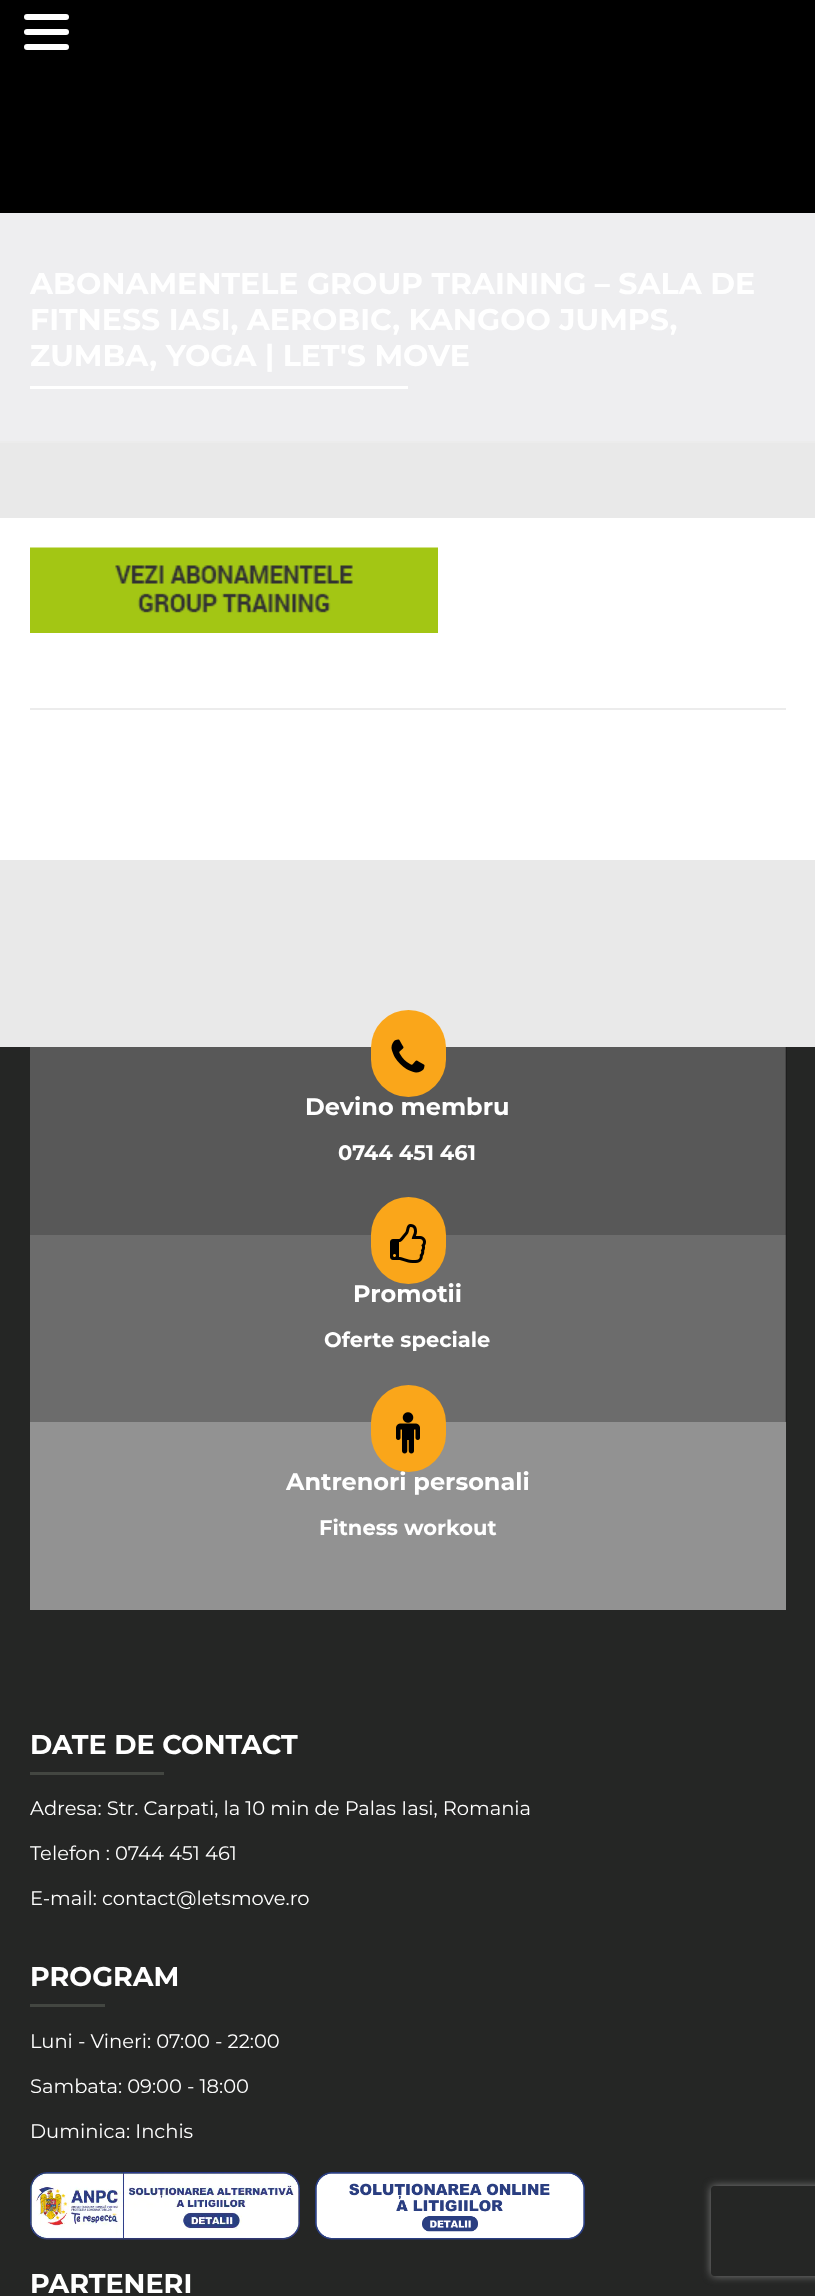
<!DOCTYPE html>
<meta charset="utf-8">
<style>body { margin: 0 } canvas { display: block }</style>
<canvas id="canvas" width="815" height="2296"></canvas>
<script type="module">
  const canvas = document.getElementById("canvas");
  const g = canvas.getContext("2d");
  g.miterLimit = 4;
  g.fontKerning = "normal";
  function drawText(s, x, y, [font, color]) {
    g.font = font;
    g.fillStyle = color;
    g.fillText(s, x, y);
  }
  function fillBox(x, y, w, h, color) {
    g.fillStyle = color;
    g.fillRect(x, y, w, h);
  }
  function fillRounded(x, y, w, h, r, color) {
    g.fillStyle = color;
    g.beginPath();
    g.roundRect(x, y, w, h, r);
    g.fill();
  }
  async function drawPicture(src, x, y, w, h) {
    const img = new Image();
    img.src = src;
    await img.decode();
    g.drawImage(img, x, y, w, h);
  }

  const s1 = ["bold 30px Montserrat", "#FFFFFF"];
  const s2 = ["bold 24px Montserrat", "#FFFFFF"];
  const s3 = ["bold 21px Montserrat", "#FFFFFF"];
  const s4 = ["bold 27px Montserrat", "#FFFFFF"];
  const s5 = ["19.5px Montserrat", "#FFFFFF"];

  fillBox(0, 0, 815, 2296, "#E9E9E9");
  fillBox(0, 0, 815, 213, "#000000");
  fillRounded(24, 14, 45, 6, 3, "#FFFFFF");
  fillRounded(24, 29, 45, 6, 3, "#FFFFFF");
  fillRounded(24, 44, 45, 6, 3, "#FFFFFF");
  fillBox(0, 213, 815, 228, "#EEEEF0");
  fillBox(0, 441, 815, 2, "#ECECEC");
  drawText("ABONAMENTELE GROUP TRAINING – SALA DE", 30, 294, s1);
  drawText("FITNESS IASI, AEROBIC, KANGOO JUMPS,", 30, 330, s1);
  drawText("ZUMBA, YOGA | LET'S MOVE", 30, 366, s1);
  fillBox(30, 386, 378, 3, "#FFFFFF");
  fillBox(0, 518, 815, 342, "#FFFFFF");
  fillBox(30, 708, 756, 2, "#ECECEC");
  await drawPicture("pic1.png", 30, 547, 408, 86);
  fillBox(0, 1047, 815, 1249, "#252625");
  fillBox(786, 1047, 1, 375, "#1E1E1E");
  fillBox(30, 1047, 755, 188, "#585858");
  fillBox(785, 1047, 1, 188, "#464646");
  drawText("Devino membru", 305, 1115, s2);
  fillRounded(371, 1010, 75, 87, 37.5, "#FAA61A");
  await drawPicture("pic2.png", 391, 1039, 34, 34);
  drawText("0744 451 461", 338, 1160, s3);
  fillBox(30, 1235, 755, 187, "#6C6C6C");
  fillBox(785, 1235, 1, 187, "#565656");
  drawText("Promotii", 353, 1302, s2);
  fillRounded(371, 1197, 75, 87, 37.5, "#FAA61A");
  await drawPicture("pic3.png", 390, 1224, 36, 39);
  drawText("Oferte speciale", 324, 1347, s3);
  fillBox(30, 1422, 756, 188, "#929292");
  drawText("Antrenori personali", 286, 1490, s2);
  fillRounded(371, 1385, 75, 87, 37.5, "#FAA61A");
  await drawPicture("pic4.png", 396, 1412, 24, 42);
  drawText("Fitness workout", 319, 1535, s3);
  drawText("DATE DE CONTACT", 30, 1754, s4);
  fillBox(30, 1772, 134, 3, "#434641");
  drawText("Adresa: Str. Carpati, la 10 min de Palas Iasi, Romania", 30, 1815, s5);
  drawText("Telefon : 0744 451 461", 30, 1860, s5);
  drawText("E-mail: contact@letsmove.ro", 30, 1905, s5);
  drawText("PROGRAM", 30, 1986, s4);
  fillBox(30, 2004, 75, 3, "#434641");
  drawText("Luni - Vineri: 07:00 - 22:00", 30, 2048, s5);
  drawText("Sambata: 09:00 - 18:00", 30, 2093, s5);
  drawText("Duminica: Inchis", 30, 2138, s5);
  await drawPicture("pic5.png", 30, 2172, 270, 68);
  await drawPicture("pic6.png", 315, 2172, 270, 68);
  drawText("PARTENERI", 30, 2293, s4);
  g.save();
  g.beginPath();
  g.moveTo(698, 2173);
  g.lineTo(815, 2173);
  g.lineTo(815, 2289);
  g.lineTo(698, 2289);
  g.closePath();
  g.moveTo(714, 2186);
  g.lineTo(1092, 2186);
  g.bezierCurveTo(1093.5, 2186, 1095, 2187.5, 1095, 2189);
  g.lineTo(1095, 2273);
  g.bezierCurveTo(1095, 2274.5, 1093.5, 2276, 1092, 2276);
  g.lineTo(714, 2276);
  g.bezierCurveTo(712.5, 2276, 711, 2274.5, 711, 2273);
  g.lineTo(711, 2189);
  g.bezierCurveTo(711, 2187.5, 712.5, 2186, 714, 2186);
  g.closePath();
  g.clip("evenodd");
  g.fillStyle = "#808080";
  g.filter = "blur(4px)";
  g.beginPath();
  g.roundRect(711, 2186, 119, 90, 3);
  g.fill();
  g.filter = "none";
  g.restore();
</script>
